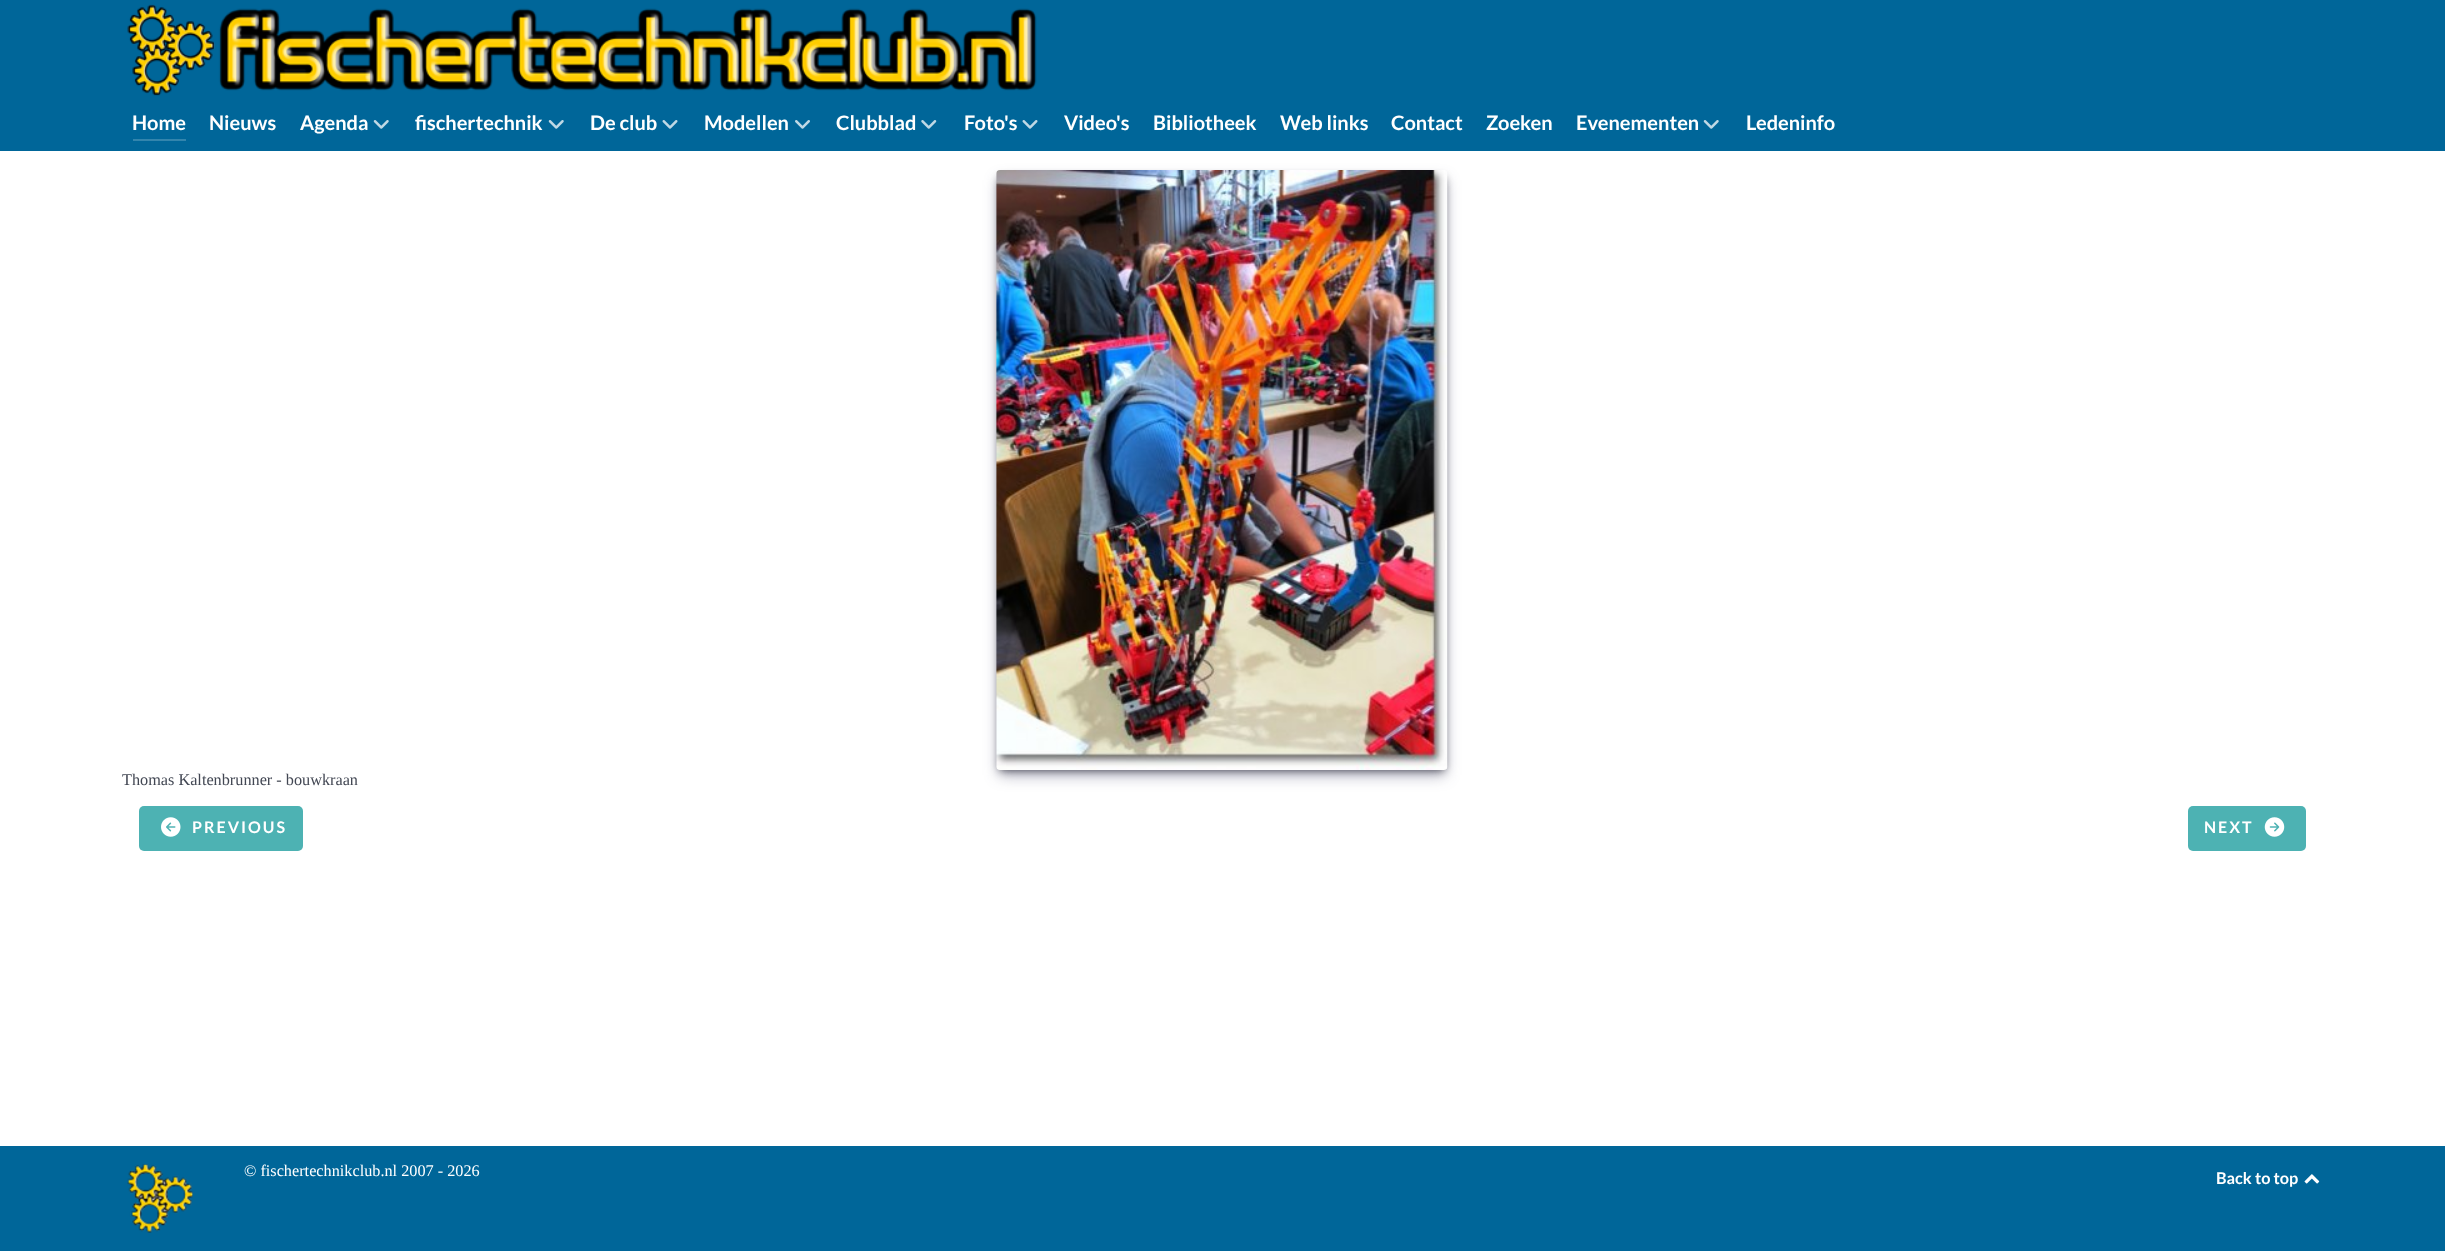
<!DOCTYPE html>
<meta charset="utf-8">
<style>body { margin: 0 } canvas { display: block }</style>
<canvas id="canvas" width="2445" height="1251"></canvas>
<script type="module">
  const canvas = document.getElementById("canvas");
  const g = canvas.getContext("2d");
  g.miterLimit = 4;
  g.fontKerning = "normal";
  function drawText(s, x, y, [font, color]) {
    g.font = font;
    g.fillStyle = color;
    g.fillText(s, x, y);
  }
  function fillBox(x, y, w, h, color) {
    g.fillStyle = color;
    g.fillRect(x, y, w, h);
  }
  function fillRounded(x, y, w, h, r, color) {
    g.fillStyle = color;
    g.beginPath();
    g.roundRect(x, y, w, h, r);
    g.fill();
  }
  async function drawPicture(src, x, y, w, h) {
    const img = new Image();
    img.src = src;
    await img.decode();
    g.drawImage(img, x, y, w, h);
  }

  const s1 = ["bold 20px Lato", "#FFFFFF"];
  const s2 = ["16.25px Liberation Serif", "#424753"];
  const s3 = ["bold 16px Lato", "#FFFFFF"];
  const s4 = ["16.25px Liberation Serif", "#FFFFFF"];
  const s5 = ["bold 16.25px Lato", "#FFFFFF"];

  fillBox(0, 0, 2445, 1251, "#FFFFFF");
  fillBox(0, 0, 2445, 151, "#006699");
  await drawPicture("pic1.png", 127, 4, 910, 92);
  fillBox(133, 139, 53, 2, "#3385AD");
  drawText("Home", 132, 130, s1);
  drawText("Nieuws", 209, 130, s1);
  drawText("Agenda", 300, 130, s1);
  await drawPicture("pic2.png", 373, 120, 16, 9);
  drawText("fischertechnik", 415, 130, s1);
  await drawPicture("pic2.png", 548, 120, 16, 9);
  drawText("De club", 590, 130, s1);
  await drawPicture("pic3.png", 662, 120, 16, 9);
  drawText("Modellen", 704, 130, s1);
  await drawPicture("pic4.png", 795, 120, 15, 9);
  drawText("Clubblad", 836, 130, s1);
  await drawPicture("pic5.png", 921, 120, 16, 9);
  drawText("Foto's", 964, 130, s1);
  await drawPicture("pic3.png", 1022, 120, 16, 9);
  drawText("Video's", 1064, 130, s1);
  drawText("Bibliotheek", 1153, 130, s1);
  drawText("Web links", 1280, 130, s1);
  drawText("Contact", 1391, 130, s1);
  drawText("Zoeken", 1486, 130, s1);
  drawText("Evenementen", 1576, 130, s1);
  await drawPicture("pic2.png", 1703, 120, 16, 9);
  drawText("Ledeninfo", 1746, 130, s1);
  drawText("Thomas Kaltenbrunner - bouwkraan", 122, 785, s2);
  g.fillStyle = "rgba(0, 0, 0, 0.7)";
  g.filter = "blur(4.5px)";
  g.beginPath();
  g.rect(1000, 178, 444, 592);
  g.fill();
  g.filter = "none";
  g.fillStyle = "rgba(50, 50, 93, 0.4)";
  g.filter = "blur(7.5px)";
  g.beginPath();
  g.roundRect(999, 180, 446, 595, 1);
  g.fill();
  g.filter = "none";
  await drawPicture("pic6.png", 996, 170, 452, 600);
  fillRounded(139, 806, 164, 45, 5, "#4DB2B3");
  await drawPicture("pic7.png", 161, 817, 20, 20);
  g.letterSpacing = "2px";
  drawText("PREVIOUS", 192, 833, s3);
  fillRounded(2188, 806, 118, 45, 5, "#4DB2B3");
  drawText("NEXT", 2204, 833, s3);
  await drawPicture("pic8.png", 2264, 817, 21, 20);
  fillBox(0, 1146, 2445, 105, "#006699");
  await drawPicture("pic9.png", 127, 1164, 66, 69);
  g.letterSpacing = "0px";
  drawText("© fischertechnikclub.nl 2007 - 2026", 244, 1176, s4);
  drawText("Back to top", 2216, 1184, s5);
  await drawPicture("pic10.png", 2304, 1174, 16, 10);
</script>
